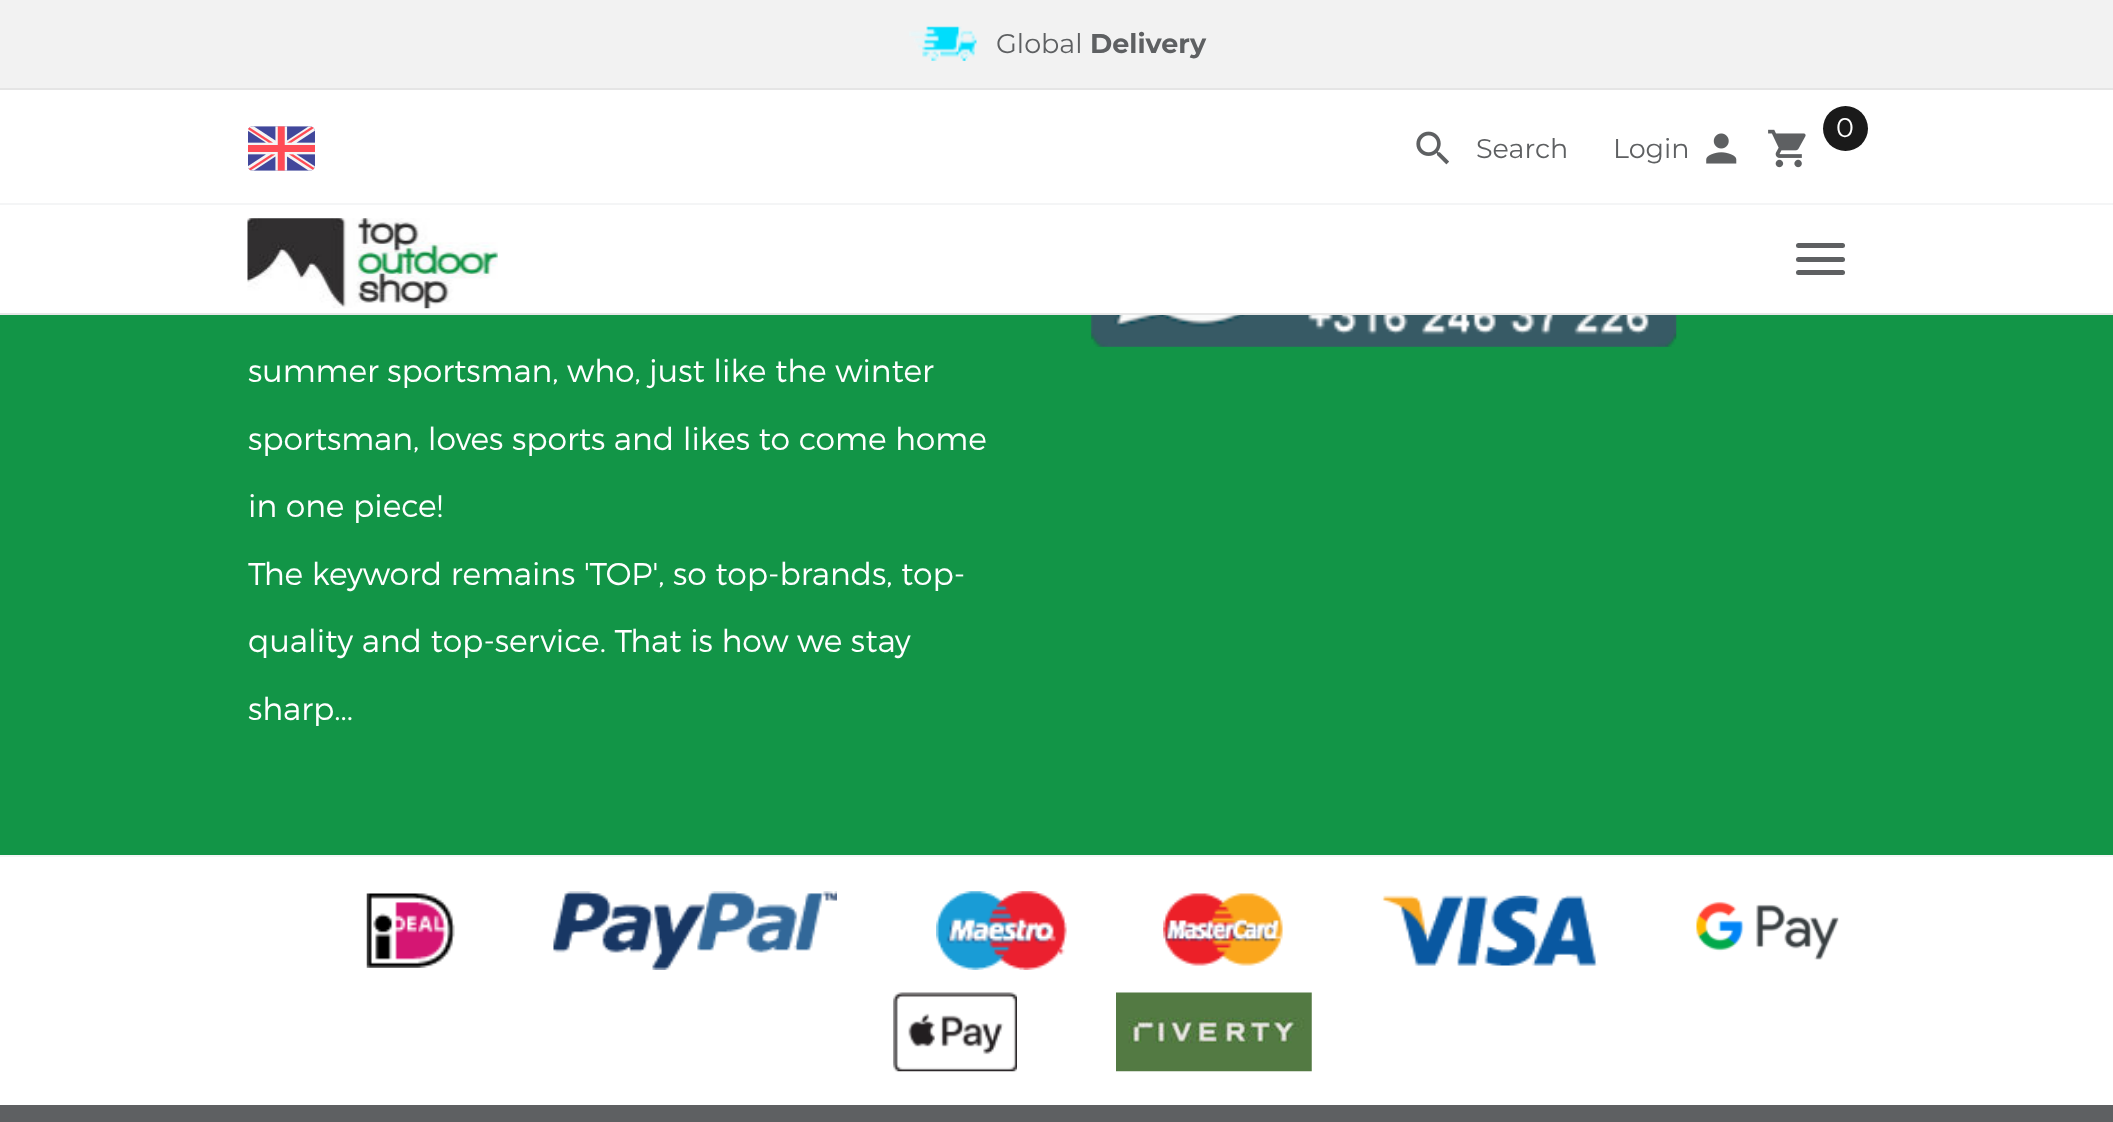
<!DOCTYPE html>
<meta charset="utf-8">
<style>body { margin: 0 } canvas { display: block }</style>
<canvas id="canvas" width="2113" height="1122"></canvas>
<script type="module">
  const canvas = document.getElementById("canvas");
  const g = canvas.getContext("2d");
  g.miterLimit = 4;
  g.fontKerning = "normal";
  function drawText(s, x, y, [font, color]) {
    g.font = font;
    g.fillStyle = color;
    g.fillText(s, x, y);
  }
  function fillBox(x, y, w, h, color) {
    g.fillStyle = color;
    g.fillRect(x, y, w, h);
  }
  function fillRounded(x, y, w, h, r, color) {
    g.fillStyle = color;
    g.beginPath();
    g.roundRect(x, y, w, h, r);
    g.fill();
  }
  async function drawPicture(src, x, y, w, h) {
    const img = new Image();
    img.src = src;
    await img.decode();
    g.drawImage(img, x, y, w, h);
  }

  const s1 = ["27px Montserrat", "#5E6062"];
  const s2 = ["bold 27px Montserrat", "#5E6062"];
  const s3 = ["27px Montserrat", "#FFFFFF"];
  const s4 = ["300 31.5px Montserrat", "#FFFFFF"];

  fillBox(0, 0, 2113, 1122, "#129547");
  fillBox(0, 90, 2113, 223, "#FFFFFF");
  fillBox(0, 313, 2113, 2, "#E7E7E7");
  fillBox(0, 0, 2113, 88, "#F2F2F2");
  fillBox(0, 88, 2113, 2, "#E5E5E5");
  await drawPicture("pic1.png", 909, 26, 68, 35);
  drawText("Global", 996, 53, s1);
  drawText("Delivery", 1090, 53, s2);
  await drawPicture("pic2.png", 248, 126, 67, 45);
  await drawPicture("pic3.png", 1416, 131, 33, 34);
  drawText("Search", 1476, 158, s1);
  drawText("Login", 1613, 158, s1);
  await drawPicture("pic4.png", 1706, 133, 31, 31);
  await drawPicture("pic5.png", 1768, 129, 38, 39);
  g.fillStyle = "#1A1A1A";
  g.beginPath();
  g.arc(1845.5, 128.5, 22.5, 0, Math.PI * 2);
  g.fill();
  drawText("0", 1836, 137, s3);
  fillBox(0, 203, 2113, 2, "#F4F5F6");
  await drawPicture("pic6.png", 247, 218, 251, 91);
  fillRounded(1796, 243, 49, 5, 2.5, "#5E6062");
  fillRounded(1796, 257, 49, 5, 2.5, "#5E6062");
  fillRounded(1796, 270, 49, 5, 2.5, "#5E6062");
  await drawPicture("pic7.png", 1091, 315, 586, 32);
  drawText("summer sportsman, who, just like the winter", 248, 382, s4);
  drawText("sportsman, loves sports and likes to come home", 248, 450, s4);
  drawText("in one piece!", 248, 517, s4);
  drawText("The keyword remains 'TOP', so top-brands, top-", 248, 585, s4);
  drawText("quality and top-service. That is how we stay", 248, 652, s4);
  drawText("sharp...", 248, 720, s4);
  fillBox(0, 857, 2113, 248, "#FFFFFF");
  fillBox(0, 855, 2113, 2, "#F4F5F6");
  await drawPicture("pic8.png", 366, 893, 89, 75);
  await drawPicture("pic9.png", 553, 891, 284, 79);
  await drawPicture("pic10.png", 936, 891, 131, 79);
  await drawPicture("pic11.png", 1163, 893, 120, 73);
  await drawPicture("pic12.png", 1381, 895, 217, 71);
  await drawPicture("pic13.png", 1696, 901, 143, 59);
  await drawPicture("pic14.png", 893, 992, 124, 80);
  await drawPicture("pic15.png", 1116, 992, 196, 80);
  fillBox(0, 1105, 2113, 17, "#5E6062");
</script>
